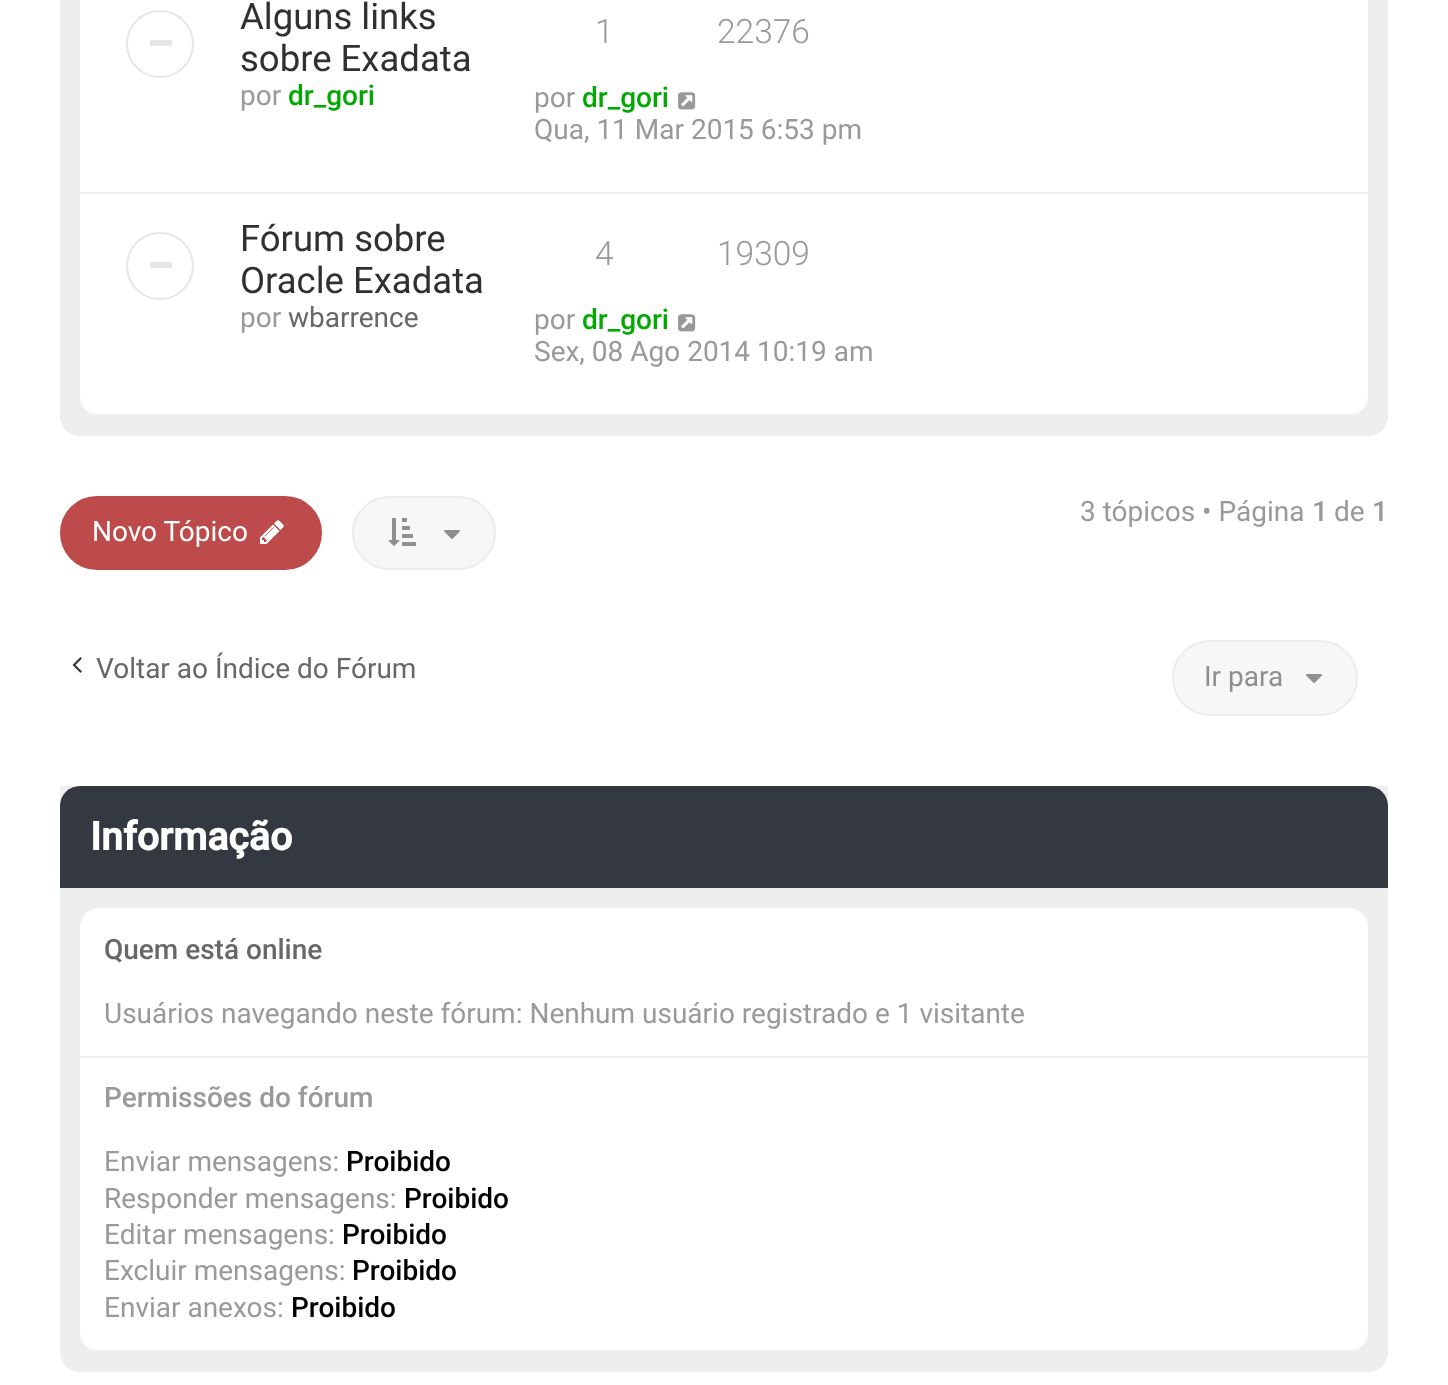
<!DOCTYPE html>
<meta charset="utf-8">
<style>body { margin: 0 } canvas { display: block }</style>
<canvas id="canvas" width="1448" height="1385"></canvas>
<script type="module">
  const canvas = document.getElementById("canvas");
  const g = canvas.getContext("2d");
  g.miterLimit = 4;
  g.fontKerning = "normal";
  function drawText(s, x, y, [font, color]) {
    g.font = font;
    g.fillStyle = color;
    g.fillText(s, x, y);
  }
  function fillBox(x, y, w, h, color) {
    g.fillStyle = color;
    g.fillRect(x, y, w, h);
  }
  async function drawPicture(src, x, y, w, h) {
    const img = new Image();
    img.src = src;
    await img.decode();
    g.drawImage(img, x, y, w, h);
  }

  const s1 = ["36.5px Roboto", "#303030"];
  const s2 = ["28px Roboto", "#999999"];
  const s3 = ["500 28px Roboto", "#00AA00"];
  const s4 = ["300 33.5px Roboto", "#999999"];
  const s5 = ["28px Roboto", "#676767"];
  const s6 = ["500 28px Roboto", "#999999"];
  const s7 = ["28px Roboto", "#FFFFFF"];
  const s8 = ["28px Roboto", "#8F8F8F"];
  const s9 = ["bold 39.25px Roboto", "#FFFFFF"];
  const s10 = ["500 28px Roboto", "#676767"];
  const s11 = ["500 28px Roboto", "#000000"];

  fillBox(0, 0, 1448, 1385, "#FFFFFF");
  g.fillStyle = "#EEEEEE";
  g.beginPath();
  g.moveTo(60, -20);
  g.lineTo(1388, -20);
  g.lineTo(1388, 416);
  g.bezierCurveTo(1388, 427, 1379, 436, 1368, 436);
  g.lineTo(80, 436);
  g.bezierCurveTo(69, 436, 60, 427, 60, 416);
  g.closePath();
  g.fill();
  fillBox(80, 0, 1288, 192, "#FFFFFF");
  fillBox(80, 192, 1288, 2, "#ECF0F1");
  g.beginPath();
  g.arc(160, 44, 33, 0, Math.PI * 2);
  g.strokeStyle = "#E6E6E6";
  g.lineWidth = 2;
  g.stroke();
  fillBox(150, 40, 22, 6, "#E6E6E6");
  drawText("Alguns links", 240, 29, s1);
  drawText("sobre Exadata", 240, 71, s1);
  drawText("por", 240, 105, s2);
  drawText("dr_gori", 288, 105, s3);
  drawText("1", 595, 43, s4);
  drawText("22376", 717, 43, s4);
  drawText("por", 534, 107, s2);
  drawText("dr_gori", 582, 107, s3);
  await drawPicture("pic1.png", 678, 92, 18, 18);
  drawText("Qua, 11 Mar 2015 6:53 pm", 534, 139, s2);
  g.fillStyle = "#FFFFFF";
  g.beginPath();
  g.roundRect(80, 194, 1288, 222, [0, 0, 20, 20]);
  g.fill();
  fillBox(90, 414, 1268, 2, "#ECF0F1");
  g.beginPath();
  g.arc(160, 266, 33, 0, Math.PI * 2);
  g.stroke();
  fillBox(150, 262, 22, 6, "#E6E6E6");
  drawText("Fórum sobre", 240, 251, s1);
  drawText("Oracle Exadata", 240, 293, s1);
  drawText("por", 240, 327, s2);
  drawText("wbarrence", 288, 327, s5);
  drawText("4", 595, 265, s4);
  drawText("19309", 717, 265, s4);
  drawText("por", 534, 329, s2);
  drawText("dr_gori", 582, 329, s3);
  await drawPicture("pic1.png", 678, 314, 18, 18);
  drawText("Sex, 08 Ago 2014 10:19 am", 534, 361, s2);
  g.fillStyle = "#F7F7F7";
  g.beginPath();
  g.roundRect(353, 497, 142, 72, 36);
  g.fill();
  g.strokeStyle = "#EDECEC";
  g.stroke();
  await drawPicture("pic2.png", 388, 518, 28, 28);
  await drawPicture("pic3.png", 444, 530, 16, 9);
  drawText("3 tópicos • Página", 1080, 521, s2);
  drawText("1", 1312, 521, s6);
  drawText("de", 1334, 521, s2);
  drawText("1", 1372, 521, s6);
  g.fillStyle = "#BD4B4B";
  g.beginPath();
  g.roundRect(61, 497, 260, 72, 36);
  g.fill();
  g.strokeStyle = "#BD4B4B";
  g.stroke();
  drawText("Novo Tópico", 92, 541, s7);
  await drawPicture("pic4.png", 260, 520, 24, 24);
  await drawPicture("pic5.png", 72, 657, 10, 16);
  drawText("Voltar ao Índice do Fórum", 96, 678, s5);
  g.fillStyle = "#F7F7F7";
  g.beginPath();
  g.roundRect(1173, 641, 184, 74, 37);
  g.fill();
  g.strokeStyle = "#EDECEC";
  g.stroke();
  drawText("Ir para", 1204, 686, s8);
  await drawPicture("pic3.png", 1306, 674, 16, 9);
  g.fillStyle = "#EEEEEE";
  g.beginPath();
  g.roundRect(60, 786, 1328, 586, [0, 0, 20, 20]);
  g.fill();
  g.fillStyle = "#343840";
  g.beginPath();
  g.roundRect(60, 786, 1328, 102, [20, 20, 0, 0]);
  g.fill();
  drawText("Informação", 90, 850, s9);
  g.beginPath();
  g.roundRect(80, 908, 1288, 150, [20, 20, 0, 0]);
  g.fill();
  fillBox(80, 1056, 1288, 2, "#ECF0F1");
  drawText("Quem está online", 104, 959, s10);
  drawText("Usuários navegando neste fórum: Nenhum usuário registrado e 1 visitante", 104, 1023, s2);
  g.fillStyle = "#FFFFFF";
  g.beginPath();
  g.roundRect(80, 1058, 1288, 294, [0, 0, 20, 20]);
  g.fill();
  fillBox(90, 1350, 1268, 2, "#ECF0F1");
  drawText("Permissões do fórum", 104, 1107, s6);
  drawText("Enviar mensagens:", 104, 1171, s2);
  drawText("Proibido", 346, 1171, s11);
  drawText("Responder mensagens:", 104, 1208, s2);
  drawText("Proibido", 404, 1208, s11);
  drawText("Editar mensagens:", 104, 1244, s2);
  drawText("Proibido", 342, 1244, s11);
  drawText("Excluir mensagens:", 104, 1280, s2);
  drawText("Proibido", 352, 1280, s11);
  drawText("Enviar anexos:", 104, 1317, s2);
  drawText("Proibido", 291, 1317, s11);
</script>
